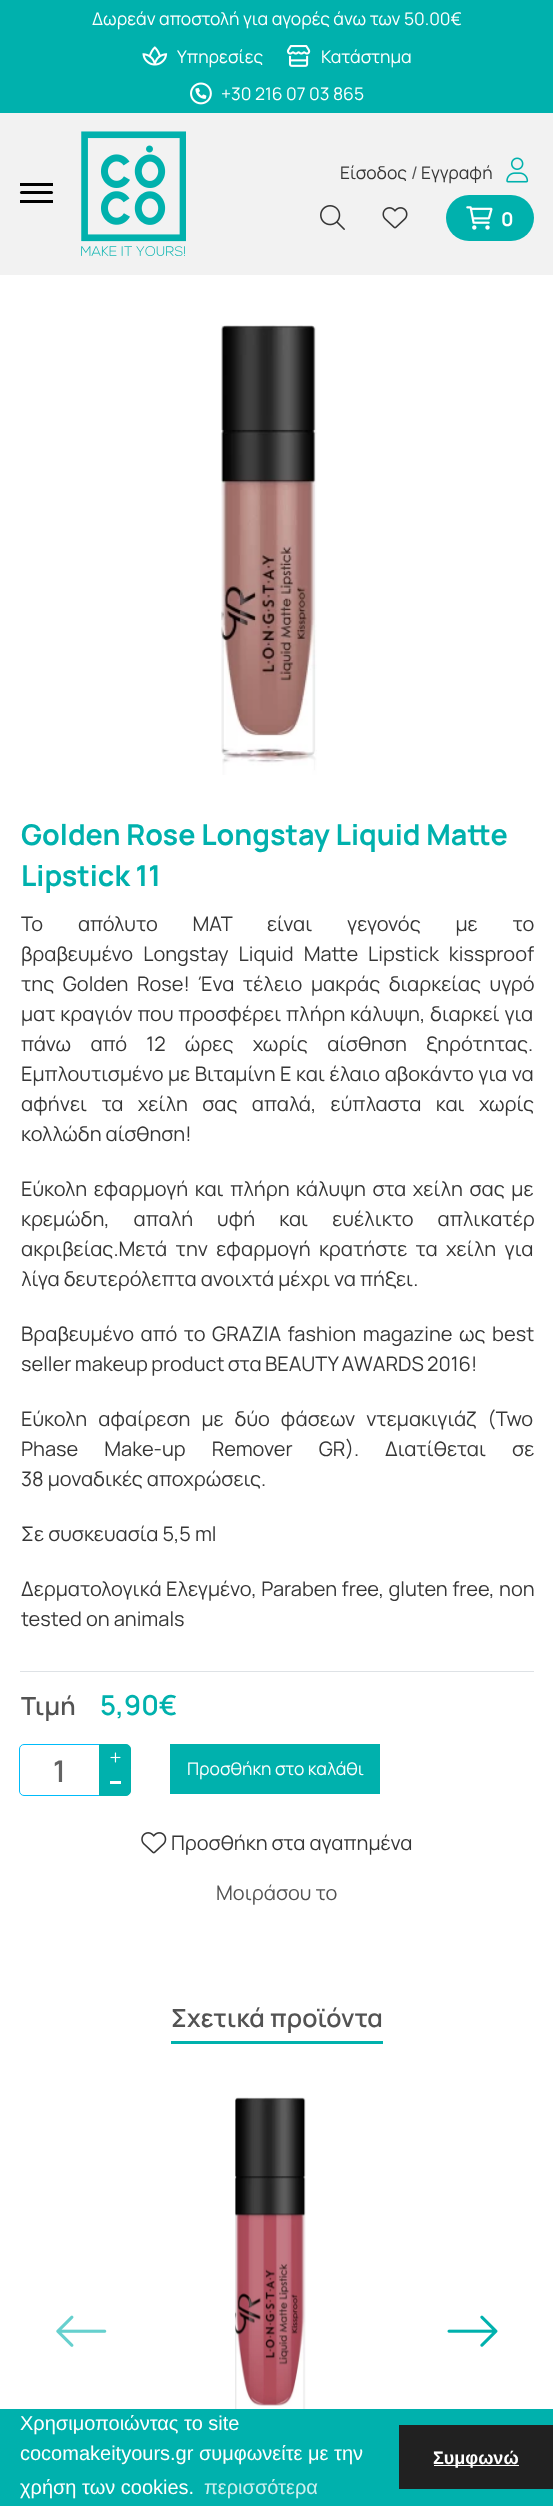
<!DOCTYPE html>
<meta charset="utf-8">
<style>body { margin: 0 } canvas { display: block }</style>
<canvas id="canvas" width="553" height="2506"></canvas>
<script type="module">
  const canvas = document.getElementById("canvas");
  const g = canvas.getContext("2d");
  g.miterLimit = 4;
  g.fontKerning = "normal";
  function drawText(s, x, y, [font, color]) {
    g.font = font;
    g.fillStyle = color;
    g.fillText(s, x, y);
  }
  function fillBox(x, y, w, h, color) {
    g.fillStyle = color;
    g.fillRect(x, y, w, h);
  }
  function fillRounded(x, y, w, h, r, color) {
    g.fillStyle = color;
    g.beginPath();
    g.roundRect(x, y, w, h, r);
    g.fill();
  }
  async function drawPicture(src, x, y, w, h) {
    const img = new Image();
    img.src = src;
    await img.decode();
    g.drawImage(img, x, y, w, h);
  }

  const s1 = ["17.5px Manrope", "#FFFFFF"];
  const s2 = ["17.5px Manrope", "#363636"];
  const s3 = ["17.5px Manrope", "#535353"];
  const s4 = ["bold 19px Manrope", "#FFFFFF"];
  const s5 = ["bold 28.75px Manrope", "#00B1AD"];
  const s6 = ["20px Manrope", "#363636"];
  const s7 = ["600 25px Manrope", "#535353"];
  const s8 = ["600 27.5px Manrope", "#00B1AD"];
  const s9 = ["600 30px Manrope", "#636363"];
  const s10 = ["20px Manrope", "#535353"];
  const s11 = ["20px Liberation Sans", "#FFFFFF"];
  const s12 = ["20px Liberation Sans", "#CCEFEF"];
  const s13 = ["bold 18px Liberation Sans", "#FFFFFF"];

  fillBox(0, 0, 553, 2506, "#FFFFFF");
  fillBox(0, 113, 553, 162, "#F2F2F2");
  fillBox(0, 0, 553, 113, "#00B1AD");
  drawText("Δωρεάν αποστολή για αγορές άνω των 50.00€", 92, 25, s1);
  await drawPicture("pic1.png", 142, 46, 26, 20);
  drawText("Υπηρεσίες", 177, 63, s1);
  await drawPicture("pic2.png", 286, 45, 25, 22);
  drawText("Κατάστημα", 321, 63, s1);
  await drawPicture("pic3.png", 190, 82, 22, 23);
  drawText("+30 216 07 03 865", 221, 100, s1);
  fillRounded(20, 191, 33, 3, 1.5, "#000000");
  fillBox(20, 183, 33, 3, "#000000");
  fillBox(20, 200, 33, 3, "#000000");
  await drawPicture("pic4.png", 81, 131, 105, 125);
  drawText("Είσοδος", 340, 179, s2);
  drawText("/", 411, 179, s3);
  drawText("Εγγραφή", 421, 179, s2);
  await drawPicture("pic5.png", 506, 157, 23, 26);
  await drawPicture("pic6.png", 320, 205, 25, 25);
  await drawPicture("pic7.png", 382, 207, 26, 22);
  fillRounded(446, 195, 88, 46, 23, "#00B1AD");
  await drawPicture("pic8.png", 466, 206, 27, 24);
  drawText("0", 501, 226, s4);
  await drawPicture("pic9.png", 221, 325, 96, 450);
  drawText("Golden Rose Longstay Liquid Matte", 21, 845, s5);
  drawText("Lipstick 11", 21, 886, s5);
  fillBox(20, 1671, 514, 1, "#DEE2E6");
  g.wordSpacing = "30.75px";
  drawText("Το απόλυτο ΜΑΤ είναι γεγονός με το", 21, 931, s6);
  g.wordSpacing = "6px";
  drawText("βραβευμένο Longstay Liquid Matte Lipstick kissproof", 21, 961, s6);
  g.wordSpacing = "4.5px";
  drawText("της Golden Rose! Ένα τέλειο μακράς διαρκείας υγρό", 21, 991, s6);
  g.wordSpacing = "0.75px";
  drawText("ματ κραγιόν που προσφέρει πλήρη κάλυψη, διαρκεί για", 21, 1021, s6);
  g.wordSpacing = "15.25px";
  drawText("πάνω από 12 ώρες χωρίς αίσθηση ξηρότητας.", 21, 1051, s6);
  g.wordSpacing = "0.5px";
  drawText("Εμπλουτισμένο με Βιταμίνη Ε και έλαιο αβοκάντο για να", 21, 1081, s6);
  g.wordSpacing = "10.25px";
  drawText("αφήνει τα χείλη σας απαλά, εύπλαστα και χωρίς", 21, 1111, s6);
  g.wordSpacing = "0px";
  drawText("κολλώδη αίσθηση!", 21, 1141, s6);
  g.wordSpacing = "2.5px";
  drawText("Εύκολη εφαρμογή και πλήρη κάλυψη στα χείλη σας με", 21, 1196, s6);
  g.wordSpacing = "20px";
  drawText("κρεμώδη, απαλή υφή και ευέλικτο απλικατέρ", 21, 1226, s6);
  g.wordSpacing = "4.25px";
  drawText("ακριβείας.Μετά την εφαρμογή κρατήστε τα χείλη για", 21, 1256, s6);
  g.wordSpacing = "0px";
  drawText("λίγα δευτερόλεπτα ανοιχτά μέχρι να πήξει.", 21, 1286, s6);
  g.wordSpacing = "2.5px";
  drawText("Βραβευμένο από το GRAZIA fashion magazine ως best", 21, 1341, s6);
  g.wordSpacing = "-0.75px";
  drawText("seller makeup product στα BEAUTY AWARDS 2016!", 21, 1371, s6);
  g.wordSpacing = "7px";
  drawText("Εύκολη αφαίρεση με δύο φάσεων ντεμακιγιάζ (Two", 21, 1426, s6);
  g.wordSpacing = "22px";
  drawText("Phase Make-up Remover GR). Διατίθεται σε", 21, 1456, s6);
  g.wordSpacing = "0px";
  drawText("38 μοναδικές αποχρώσεις.", 21, 1486, s6);
  drawText("Σε συσκευασία 5,5 ml", 21, 1541, s6);
  g.wordSpacing = "0.5px";
  drawText("Δερματολογικά Ελεγμένο, Paraben free, gluten free, non", 21, 1596, s6);
  g.wordSpacing = "0px";
  drawText("tested on animals", 21, 1626, s6);
  drawText("Τιμή", 21, 1715, s7);
  drawText("5,90€", 100, 1715, s8);
  g.beginPath();
  g.roundRect(19.5, 1744.5, 80, 51, [4.5, 0, 0, 4.5]);
  g.strokeStyle = "#00BCFA";
  g.stroke();
  drawText("1", 53, 1782, s9);
  g.fillStyle = "#00B1AD";
  g.beginPath();
  g.roundRect(99.5, 1744.5, 31, 25, [0, 4.5, 0, 0]);
  g.fill();
  g.strokeStyle = "#00B1AD";
  g.stroke();
  await drawPicture("pic10.png", 110, 1752, 11, 11);
  g.beginPath();
  g.roundRect(99.5, 1769.5, 31, 26, [0, 0, 4.5, 0]);
  g.fill();
  g.stroke();
  fillBox(110, 1781, 11, 3, "#FFFFFF");
  fillBox(170, 1744, 210, 50, "#00B1AD");
  drawText("Προσθήκη στο καλάθι", 187, 1775, s1);
  await drawPicture("pic11.png", 141, 1832, 26, 22);
  drawText("Προσθήκη στα αγαπημένα", 171, 1850, s6);
  drawText("Μοιράσου το", 216, 1900, s10);
  drawText("Σχετικά προϊόντα", 171, 2027, s7);
  fillBox(171, 2041, 212, 3, "#00B1AD");
  await drawPicture("pic12.png", 235, 2097, 71, 312);
  await drawPicture("pic13.png", 56, 2315, 51, 32);
  await drawPicture("pic14.png", 447, 2315, 51, 32);
  fillBox(0, 2409, 553, 97, "#00B1AD");
  drawText("Χρησιμοποιώντας το site", 20, 2430, s11);
  drawText("cocomakeityours.gr συμφωνείτε με την", 20, 2460, s11);
  drawText("χρήση των cookies.", 20, 2494, s11);
  drawText("περισσότερα", 204, 2494, s12);
  fillBox(399, 2425, 154, 64, "#212121");
  fillBox(434, 2465, 85, 1, "#FFFFFF");
  drawText("Συμφωνώ", 433, 2464, s13);
</script>
